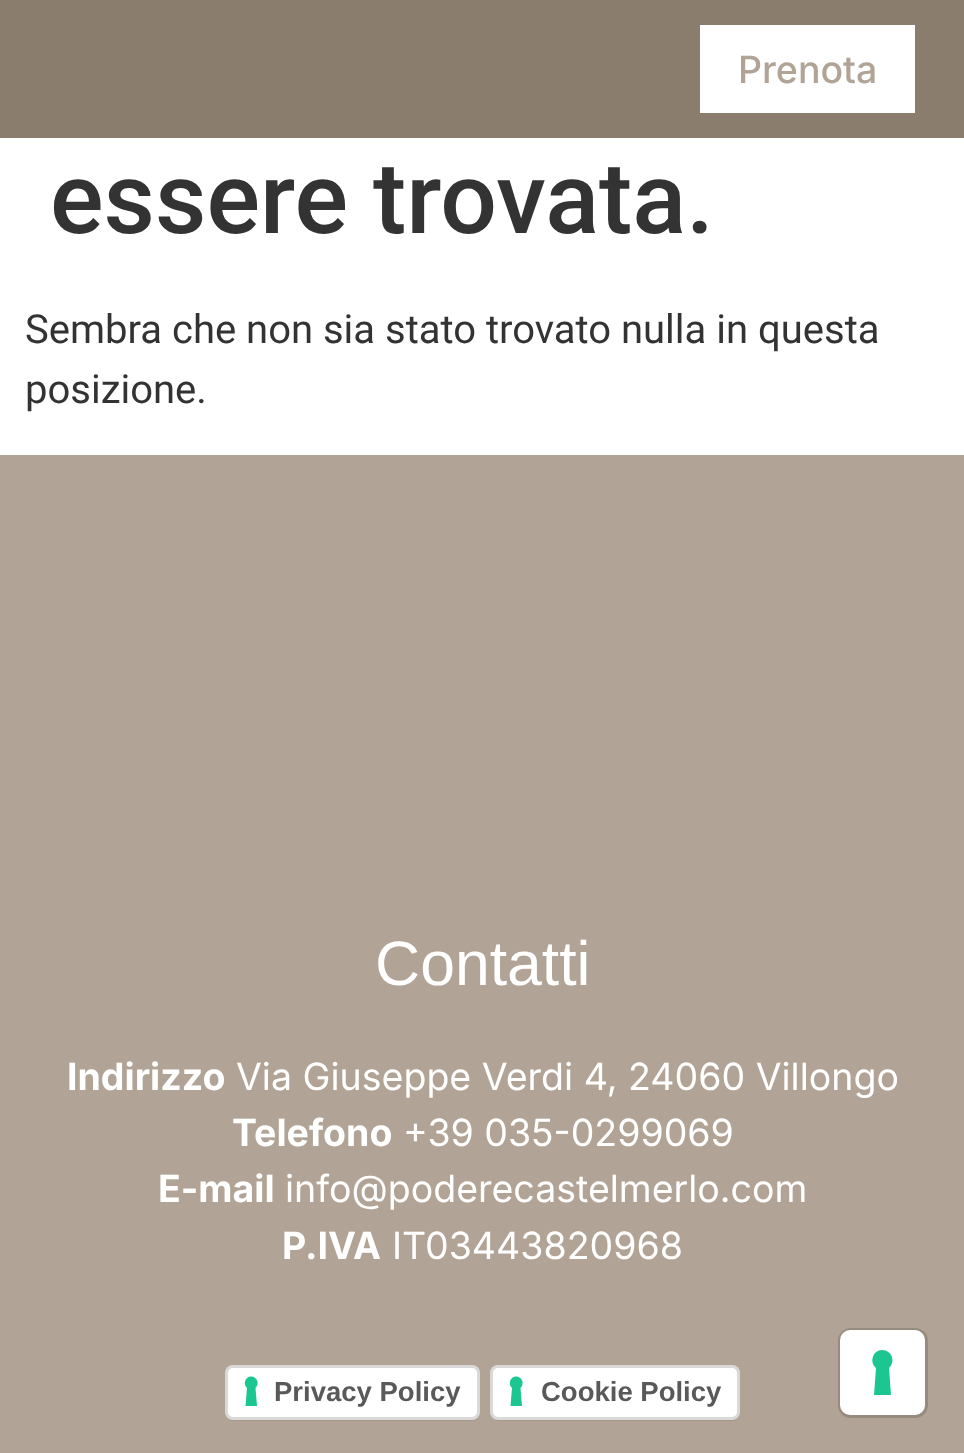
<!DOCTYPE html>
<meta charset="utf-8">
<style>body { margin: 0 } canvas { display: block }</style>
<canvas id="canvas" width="964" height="1453"></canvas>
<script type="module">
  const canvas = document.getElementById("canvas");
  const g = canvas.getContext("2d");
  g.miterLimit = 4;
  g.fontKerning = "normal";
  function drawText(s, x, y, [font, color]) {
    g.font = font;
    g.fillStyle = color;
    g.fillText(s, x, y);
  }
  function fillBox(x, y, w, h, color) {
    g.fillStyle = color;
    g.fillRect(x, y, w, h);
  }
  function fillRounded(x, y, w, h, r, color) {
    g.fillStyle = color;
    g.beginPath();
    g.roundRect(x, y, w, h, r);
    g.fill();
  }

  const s1 = ["500 37.5px Inter", "#B1A395"];
  const s2 = ["500 100px Roboto", "#333333"];
  const s3 = ["40px Roboto", "#333333"];
  const s4 = ["62.5px Liberation Sans", "#FFFFFF"];
  const s5 = ["bold 37.5px Inter", "#FFFFFF"];
  const s6 = ["37.5px Inter", "#FFFFFF"];
  const s7 = ["bold 27.5px Liberation Sans", "#595959"];

  fillBox(0, 0, 964, 1453, "#FFFFFF");
  fillBox(0, 0, 964, 138, "#8B7D6E");
  fillBox(700, 25, 215, 88, "#FFFFFF");
  drawText("Prenota", 738, 83, s1);
  drawText("essere trovata.", 50, 233, s2);
  drawText("Sembra che non sia stato trovato nulla in questa", 25, 343, s3);
  drawText("posizione.", 25, 403, s3);
  fillBox(0, 455, 964, 998, "#B1A395");
  drawText("Contatti", 375, 985, s4);
  drawText("Indirizzo", 67, 1090, s5);
  drawText("Via Giuseppe Verdi 4, 24060 Villongo", 236, 1090, s6);
  drawText("Telefono", 232, 1146, s5);
  drawText("+39 035-0299069", 403, 1146, s6);
  drawText("E-mail", 158, 1202, s5);
  drawText("info@poderecastelmerlo.com", 285, 1202, s6);
  drawText("P.IVA", 282, 1259, s5);
  drawText("IT03443820968", 392, 1259, s6);
  g.fillStyle = "rgba(0, 0, 0, 0.15)";
  g.filter = "blur(1px)";
  g.beginPath();
  g.roundRect(228, 1370, 250, 50, 5);
  g.fill();
  g.filter = "none";
  fillRounded(225, 1365, 255, 55, 8, "#FFFFFF");
  g.fillStyle = "#1CC691";
  g.beginPath();
  g.moveTo(251, 1376.5);
  g.bezierCurveTo(257, 1376.5, 260, 1384, 255.5, 1388);
  g.lineTo(257, 1406);
  g.lineTo(245.5, 1406);
  g.lineTo(247, 1388);
  g.bezierCurveTo(242.5, 1384, 245.5, 1376.5, 251, 1376.5);
  g.closePath();
  g.fill("evenodd");
  g.beginPath();
  g.roundRect(226.5, 1366.5, 252, 52, 6.5);
  g.strokeStyle = "rgba(0, 0, 0, 0.15)";
  g.lineWidth = 3;
  g.stroke();
  drawText("Privacy Policy", 274, 1401, s7);
  g.fillStyle = "rgba(0, 0, 0, 0.15)";
  g.filter = "blur(1px)";
  g.beginPath();
  g.roundRect(493, 1370, 245, 50, 5);
  g.fill();
  g.filter = "none";
  fillRounded(490, 1365, 250, 55, 8, "#FFFFFF");
  g.fillStyle = "#1CC691";
  g.beginPath();
  g.moveTo(516, 1376.5);
  g.bezierCurveTo(522, 1376.5, 525, 1384, 520.5, 1388);
  g.lineTo(522, 1406);
  g.lineTo(510.5, 1406);
  g.lineTo(512, 1388);
  g.bezierCurveTo(507.5, 1384, 510.5, 1376.5, 516, 1376.5);
  g.closePath();
  g.fill("evenodd");
  g.beginPath();
  g.roundRect(491.5, 1366.5, 247, 52, 6.5);
  g.stroke();
  drawText("Cookie Policy", 541, 1401, s7);
  g.beginPath();
  g.roundRect(839.5, 1329.5, 87, 87, 11.5);
  g.strokeStyle = "#968B7F";
  g.stroke();
  fillRounded(840, 1330, 85, 85, 10, "#FFFFFF");
  g.fillStyle = "#1CC691";
  g.beginPath();
  g.moveTo(882, 1350);
  g.bezierCurveTo(892, 1350, 896, 1362, 889, 1368);
  g.lineTo(891, 1395);
  g.lineTo(874, 1395);
  g.lineTo(876, 1368);
  g.bezierCurveTo(869, 1362, 873, 1350, 882, 1350);
  g.closePath();
  g.fill("evenodd");
</script>
